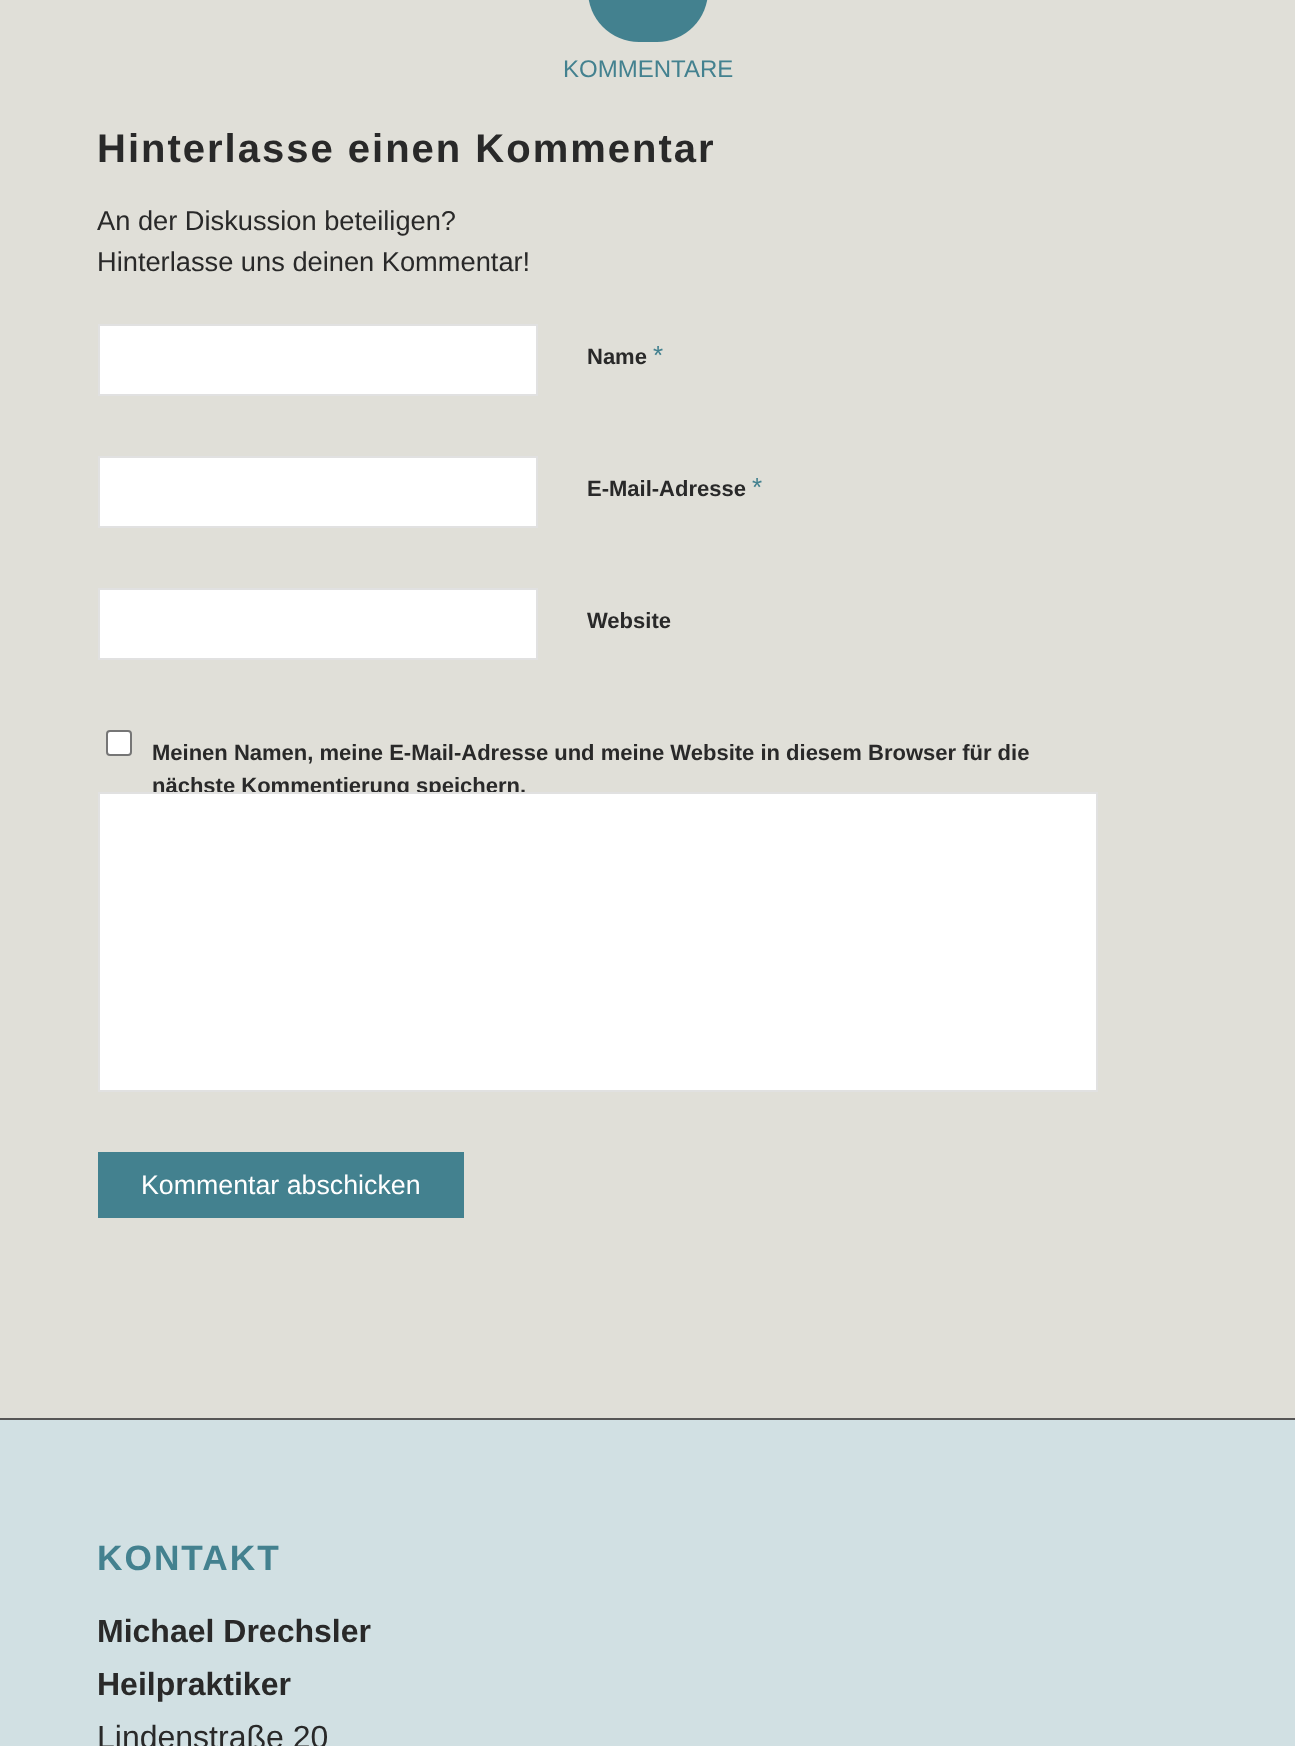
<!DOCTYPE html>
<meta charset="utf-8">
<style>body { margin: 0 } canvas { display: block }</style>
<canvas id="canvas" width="1295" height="1746"></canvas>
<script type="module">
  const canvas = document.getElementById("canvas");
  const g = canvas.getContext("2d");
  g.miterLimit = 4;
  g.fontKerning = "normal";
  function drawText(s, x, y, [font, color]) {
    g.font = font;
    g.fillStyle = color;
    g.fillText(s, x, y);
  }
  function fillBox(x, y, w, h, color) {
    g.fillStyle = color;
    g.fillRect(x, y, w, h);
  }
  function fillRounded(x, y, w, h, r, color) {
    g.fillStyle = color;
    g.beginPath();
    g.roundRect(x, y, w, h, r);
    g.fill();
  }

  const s1 = ["24px Liberation Sans", "#43818F"];
  const s2 = ["bold 40px Liberation Sans", "#292929"];
  const s3 = ["27.25px Liberation Sans", "#292929"];
  const s4 = ["bold 22px Liberation Sans", "#292929"];
  const s5 = ["26px Liberation Sans", "#43818F"];
  const s6 = ["26.75px Liberation Sans", "#FFFFFF"];
  const s7 = ["bold 35.25px Liberation Sans", "#43818F"];
  const s8 = ["bold 32px Liberation Sans", "#292929"];
  const s9 = ["32px Liberation Sans", "#292929"];

  fillBox(0, 0, 1295, 1746, "#E0DFD8");
  fillRounded(588, -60, 120, 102, 60, "#43818F");
  drawText("KOMMENTARE", 563, 77, s1);
  g.letterSpacing = "2px";
  drawText("Hinterlasse einen Kommentar", 97, 162, s2);
  g.letterSpacing = "0px";
  drawText("An der Diskussion beteiligen?", 97, 230, s3);
  drawText("Hinterlasse uns deinen Kommentar!", 97, 271, s3);
  g.fillStyle = "#FFFFFF";
  g.beginPath();
  g.rect(99, 325, 438, 70);
  g.fill();
  g.strokeStyle = "#E1E1E1";
  g.lineWidth = 2;
  g.stroke();
  drawText("Name", 587, 364, s4);
  drawText("*", 653, 364, s5);
  g.fillStyle = "#FFFFFF";
  g.beginPath();
  g.rect(99, 457, 438, 70);
  g.fill();
  g.stroke();
  drawText("E-Mail-Adresse", 587, 496, s4);
  drawText("*", 752, 496, s5);
  g.fillStyle = "#FFFFFF";
  g.beginPath();
  g.rect(99, 589, 438, 70);
  g.fill();
  g.stroke();
  drawText("Website", 587, 628, s4);
  g.fillStyle = "#FFFFFF";
  g.beginPath();
  g.roundRect(107, 731, 24, 24, 3);
  g.fill();
  g.strokeStyle = "#767676";
  g.stroke();
  drawText("Meinen Namen, meine E-Mail-Adresse und meine Website in diesem Browser für die", 152, 760, s4);
  drawText("nächste Kommentierung speichern.", 152, 793, s4);
  g.fillStyle = "#FFFFFF";
  g.beginPath();
  g.rect(99, 793, 998, 298);
  g.fill();
  g.strokeStyle = "#E1E1E1";
  g.stroke();
  fillBox(98, 1152, 366, 66, "#43818F");
  drawText("Kommentar abschicken", 141, 1194, s6);
  fillBox(0, 1420, 1295, 326, "#D1E0E3");
  fillBox(0, 1418, 1295, 2, "#555555");
  g.letterSpacing = "2px";
  drawText("KONTAKT", 97, 1570, s7);
  g.letterSpacing = "0px";
  drawText("Michael Drechsler", 97, 1642, s8);
  drawText("Heilpraktiker", 97, 1695, s8);
  drawText("Lindenstraße 20", 97, 1748, s9);
</script>
